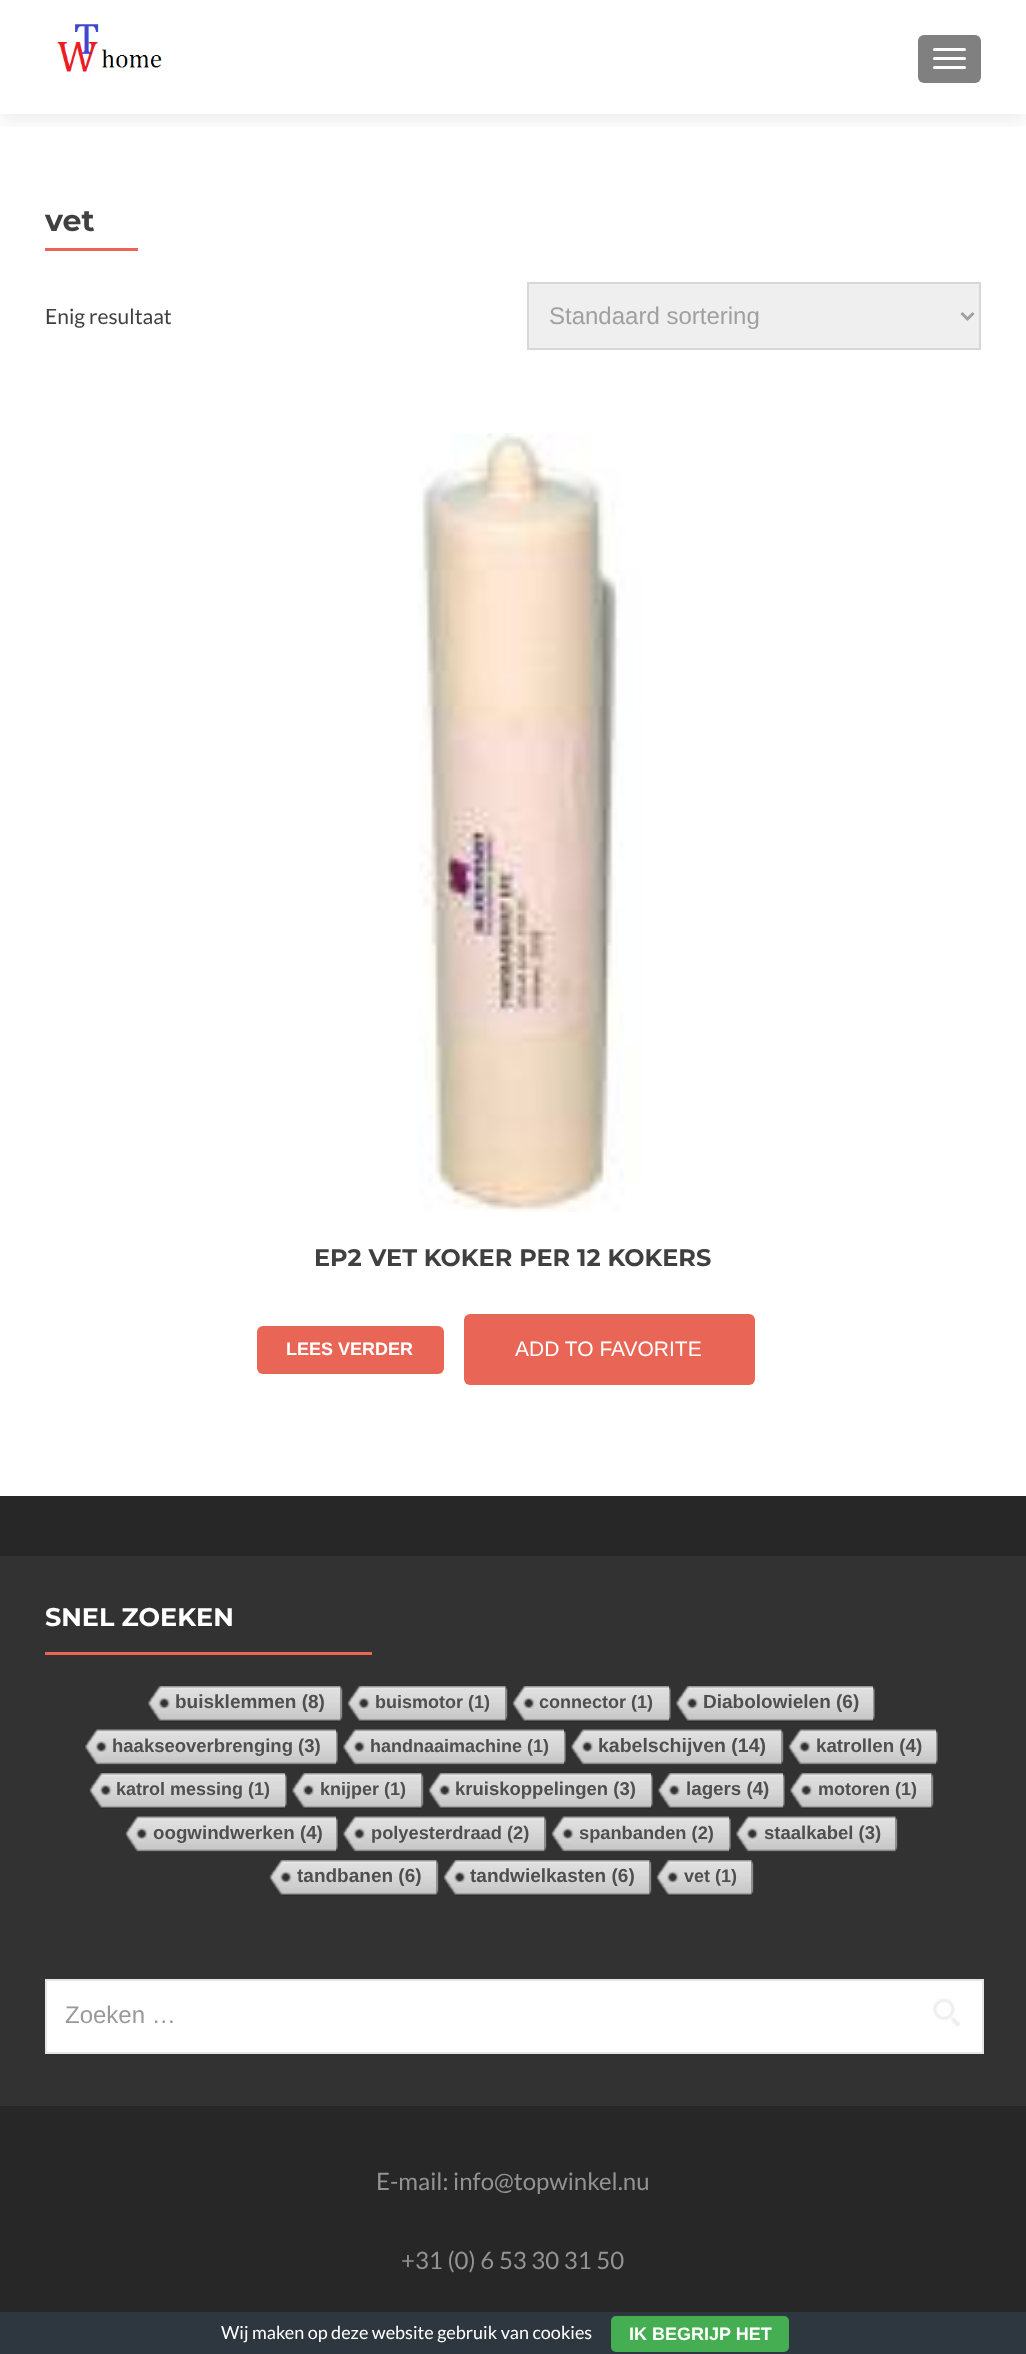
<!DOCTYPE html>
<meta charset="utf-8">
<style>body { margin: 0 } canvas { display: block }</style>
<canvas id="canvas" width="1026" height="2354"></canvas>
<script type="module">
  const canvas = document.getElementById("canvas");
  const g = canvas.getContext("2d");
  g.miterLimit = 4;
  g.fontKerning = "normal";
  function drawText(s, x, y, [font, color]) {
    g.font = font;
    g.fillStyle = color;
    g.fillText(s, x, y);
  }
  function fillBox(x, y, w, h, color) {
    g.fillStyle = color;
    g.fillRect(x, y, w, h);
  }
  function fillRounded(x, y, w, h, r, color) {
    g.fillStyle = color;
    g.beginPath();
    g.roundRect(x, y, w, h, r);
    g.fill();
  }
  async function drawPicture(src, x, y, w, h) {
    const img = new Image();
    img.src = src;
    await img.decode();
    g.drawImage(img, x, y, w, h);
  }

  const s1 = ["bold 30px Montserrat", "#404040"];
  const s2 = ["21px Lato", "#404040"];
  const s3 = ["24px Liberation Sans", "#A0A0A0"];
  const s4 = ["bold 24px Montserrat", "#404040"];
  const s5 = ["bold 18px Liberation Sans", "#FFFFFF"];
  const s6 = ["21px Liberation Sans", "#FFFFFF"];
  const s7 = ["bold 25.5px Montserrat", "#FFFFFF"];
  const s8 = ["bold 19px Liberation Sans", "#4F4F4F"];
  const s9 = ["bold 18px Liberation Sans", "#4F4F4F"];
  const s10 = ["bold 18.5px Liberation Sans", "#4F4F4F"];
  const s11 = ["bold 19.5px Liberation Sans", "#4F4F4F"];
  const s12 = ["bold 18.75px Liberation Sans", "#4F4F4F"];
  const s13 = ["bold 18.25px Liberation Sans", "#4F4F4F"];
  const s14 = ["24px Liberation Sans", "#999999"];
  const s15 = ["24px Lato", "#939393"];
  const s16 = ["18px Lato", "#FFFFFF"];

  fillBox(0, 0, 1026, 2354, "#FFFFFF");
  g.save();
  g.beginPath();
  g.rect(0, 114, 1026, 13);
  g.clip();
  g.fillStyle = "rgba(50, 50, 50, 0.08)";
  g.filter = "blur(8px)";
  g.beginPath();
  g.rect(0, 8, 1026, 114);
  g.fill();
  g.filter = "none";
  g.restore();
  await drawPicture("pic1.png", 57, 24, 105, 48);
  fillRounded(918, 35, 63, 48, 6, "#808080");
  fillRounded(933, 48, 33, 3, 1.5, "#FFFFFF");
  fillRounded(933, 57, 33, 3, 1.5, "#FFFFFF");
  fillRounded(933, 66, 33, 3, 1.5, "#FFFFFF");
  drawText("vet", 45, 231, s1);
  fillBox(45, 248, 93, 3, "#E96656");
  drawText("Enig resultaat", 45, 324, s2);
  g.fillStyle = "#EFEFEF";
  g.beginPath();
  g.rect(528, 283, 452, 66);
  g.fill();
  g.strokeStyle = "#D7D7D7";
  g.lineWidth = 2;
  g.stroke();
  g.beginPath();
  g.moveTo(961.5, 313);
  g.lineTo(967.5, 319);
  g.lineTo(973.5, 313);
  g.strokeStyle = "#A0A0A0";
  g.lineWidth = 3;
  g.stroke();
  drawText("Standaard sortering", 549, 324, s3);
  await drawPicture("pic2.png", 418, 433, 225, 779);
  drawText("EP2 VET KOKER PER 12 KOKERS", 314, 1266, s4);
  fillRounded(257, 1326, 187, 48, 6, "#E96656");
  drawText("LEES VERDER", 286, 1355, s5);
  fillRounded(464, 1314, 291, 71, 6, "#E96656");
  drawText("ADD TO FAVORITE", 515, 1356, s6);
  fillBox(0, 1496, 1026, 816, "#272727");
  fillBox(0, 1556, 1026, 550, "#323232");
  drawText("SNEL ZOEKEN", 45, 1626, s7);
  fillBox(45, 1652, 327, 3, "#E96656");
  await drawPicture("pic3.png", 148, 1686, 193, 36);
  drawText("buisklemmen (8)", 175, 1708, s8);
  await drawPicture("pic4.png", 340, 1687, 3, 33);
  await drawPicture("pic5.png", 347, 1686, 159, 36);
  drawText("buismotor (1)", 375, 1708, s9);
  await drawPicture("pic4.png", 505, 1687, 3, 33);
  await drawPicture("pic6.png", 512, 1686, 157, 36);
  drawText("connector (1)", 539, 1708, s9);
  await drawPicture("pic7.png", 669, 1687, 2, 33);
  await drawPicture("pic8.png", 676, 1686, 197, 36);
  drawText("Diabolowielen (6)", 703, 1708, s8);
  await drawPicture("pic7.png", 873, 1687, 2, 33);
  await drawPicture("pic9.png", 85, 1729, 251, 36);
  drawText("haakseoverbrenging (3)", 112, 1752, s10);
  await drawPicture("pic10.png", 336, 1731, 2, 32);
  await drawPicture("pic11.png", 343, 1729, 221, 36);
  drawText("handnaaimachine (1)", 370, 1752, s9);
  await drawPicture("pic10.png", 564, 1731, 2, 32);
  await drawPicture("pic12.png", 571, 1729, 211, 36);
  drawText("kabelschijven (14)", 598, 1752, s11);
  await drawPicture("pic13.png", 781, 1731, 3, 32);
  await drawPicture("pic14.png", 788, 1729, 148, 36);
  drawText("katrollen (4)", 816, 1752, s12);
  await drawPicture("pic15.png", 936, 1731, 2, 32);
  await drawPicture("pic16.png", 89, 1773, 196, 36);
  drawText("katrol messing (1)", 116, 1795, s9);
  await drawPicture("pic17.png", 285, 1774, 2, 33);
  await drawPicture("pic18.png", 292, 1773, 130, 36);
  drawText("knijper (1)", 320, 1795, s9);
  await drawPicture("pic4.png", 421, 1774, 3, 33);
  await drawPicture("pic19.png", 428, 1773, 223, 36);
  drawText("kruiskoppelingen (3)", 455, 1795, s10);
  await drawPicture("pic7.png", 651, 1774, 2, 33);
  await drawPicture("pic20.png", 658, 1773, 125, 36);
  drawText("lagers (4)", 686, 1795, s12);
  await drawPicture("pic7.png", 783, 1774, 2, 33);
  await drawPicture("pic21.png", 790, 1773, 142, 36);
  drawText("motoren (1)", 818, 1795, s9);
  await drawPicture("pic4.png", 931, 1774, 3, 33);
  await drawPicture("pic22.png", 125, 1816, 211, 36);
  drawText("oogwindwerken (4)", 153, 1839, s12);
  await drawPicture("pic10.png", 336, 1818, 2, 32);
  await drawPicture("pic23.png", 343, 1816, 202, 36);
  drawText("polyesterdraad (2)", 371, 1839, s13);
  await drawPicture("pic13.png", 544, 1818, 3, 32);
  await drawPicture("pic24.png", 551, 1816, 178, 36);
  drawText("spanbanden (2)", 579, 1839, s13);
  await drawPicture("pic10.png", 729, 1818, 2, 32);
  await drawPicture("pic25.png", 736, 1816, 160, 36);
  drawText("staalkabel (3)", 764, 1839, s10);
  await drawPicture("pic13.png", 895, 1818, 3, 32);
  await drawPicture("pic26.png", 269, 1860, 168, 36);
  drawText("tandbanen (6)", 297, 1882, s8);
  await drawPicture("pic4.png", 436, 1861, 3, 33);
  await drawPicture("pic27.png", 443, 1860, 207, 36);
  drawText("tandwielkasten (6)", 470, 1882, s8);
  await drawPicture("pic4.png", 649, 1861, 3, 33);
  await drawPicture("pic28.png", 656, 1860, 96, 36);
  drawText("vet (1)", 684, 1882, s9);
  await drawPicture("pic4.png", 751, 1861, 3, 33);
  g.fillStyle = "#FFFFFF";
  g.beginPath();
  g.rect(46, 1980, 937, 73);
  g.fill();
  g.strokeStyle = "#E6E6E6";
  g.lineWidth = 2;
  g.stroke();
  drawText("Zoeken …", 65, 2023, s14);
  await drawPicture("pic29.png", 933, 1998, 27, 29);
  drawText("E-mail: info@topwinkel.nu", 376, 2190, s15);
  drawText("+31 (0) 6 53 30 31 50", 401, 2269, s15);
  fillBox(0, 2312, 1026, 42, "#2E363F");
  drawText("Wij maken op deze website gebruik van cookies", 221, 2339, s16);
  fillRounded(611, 2316, 178, 36, 5, "#45AE52");
  drawText("IK BEGRIJP HET", 629, 2340, s5);
</script>
